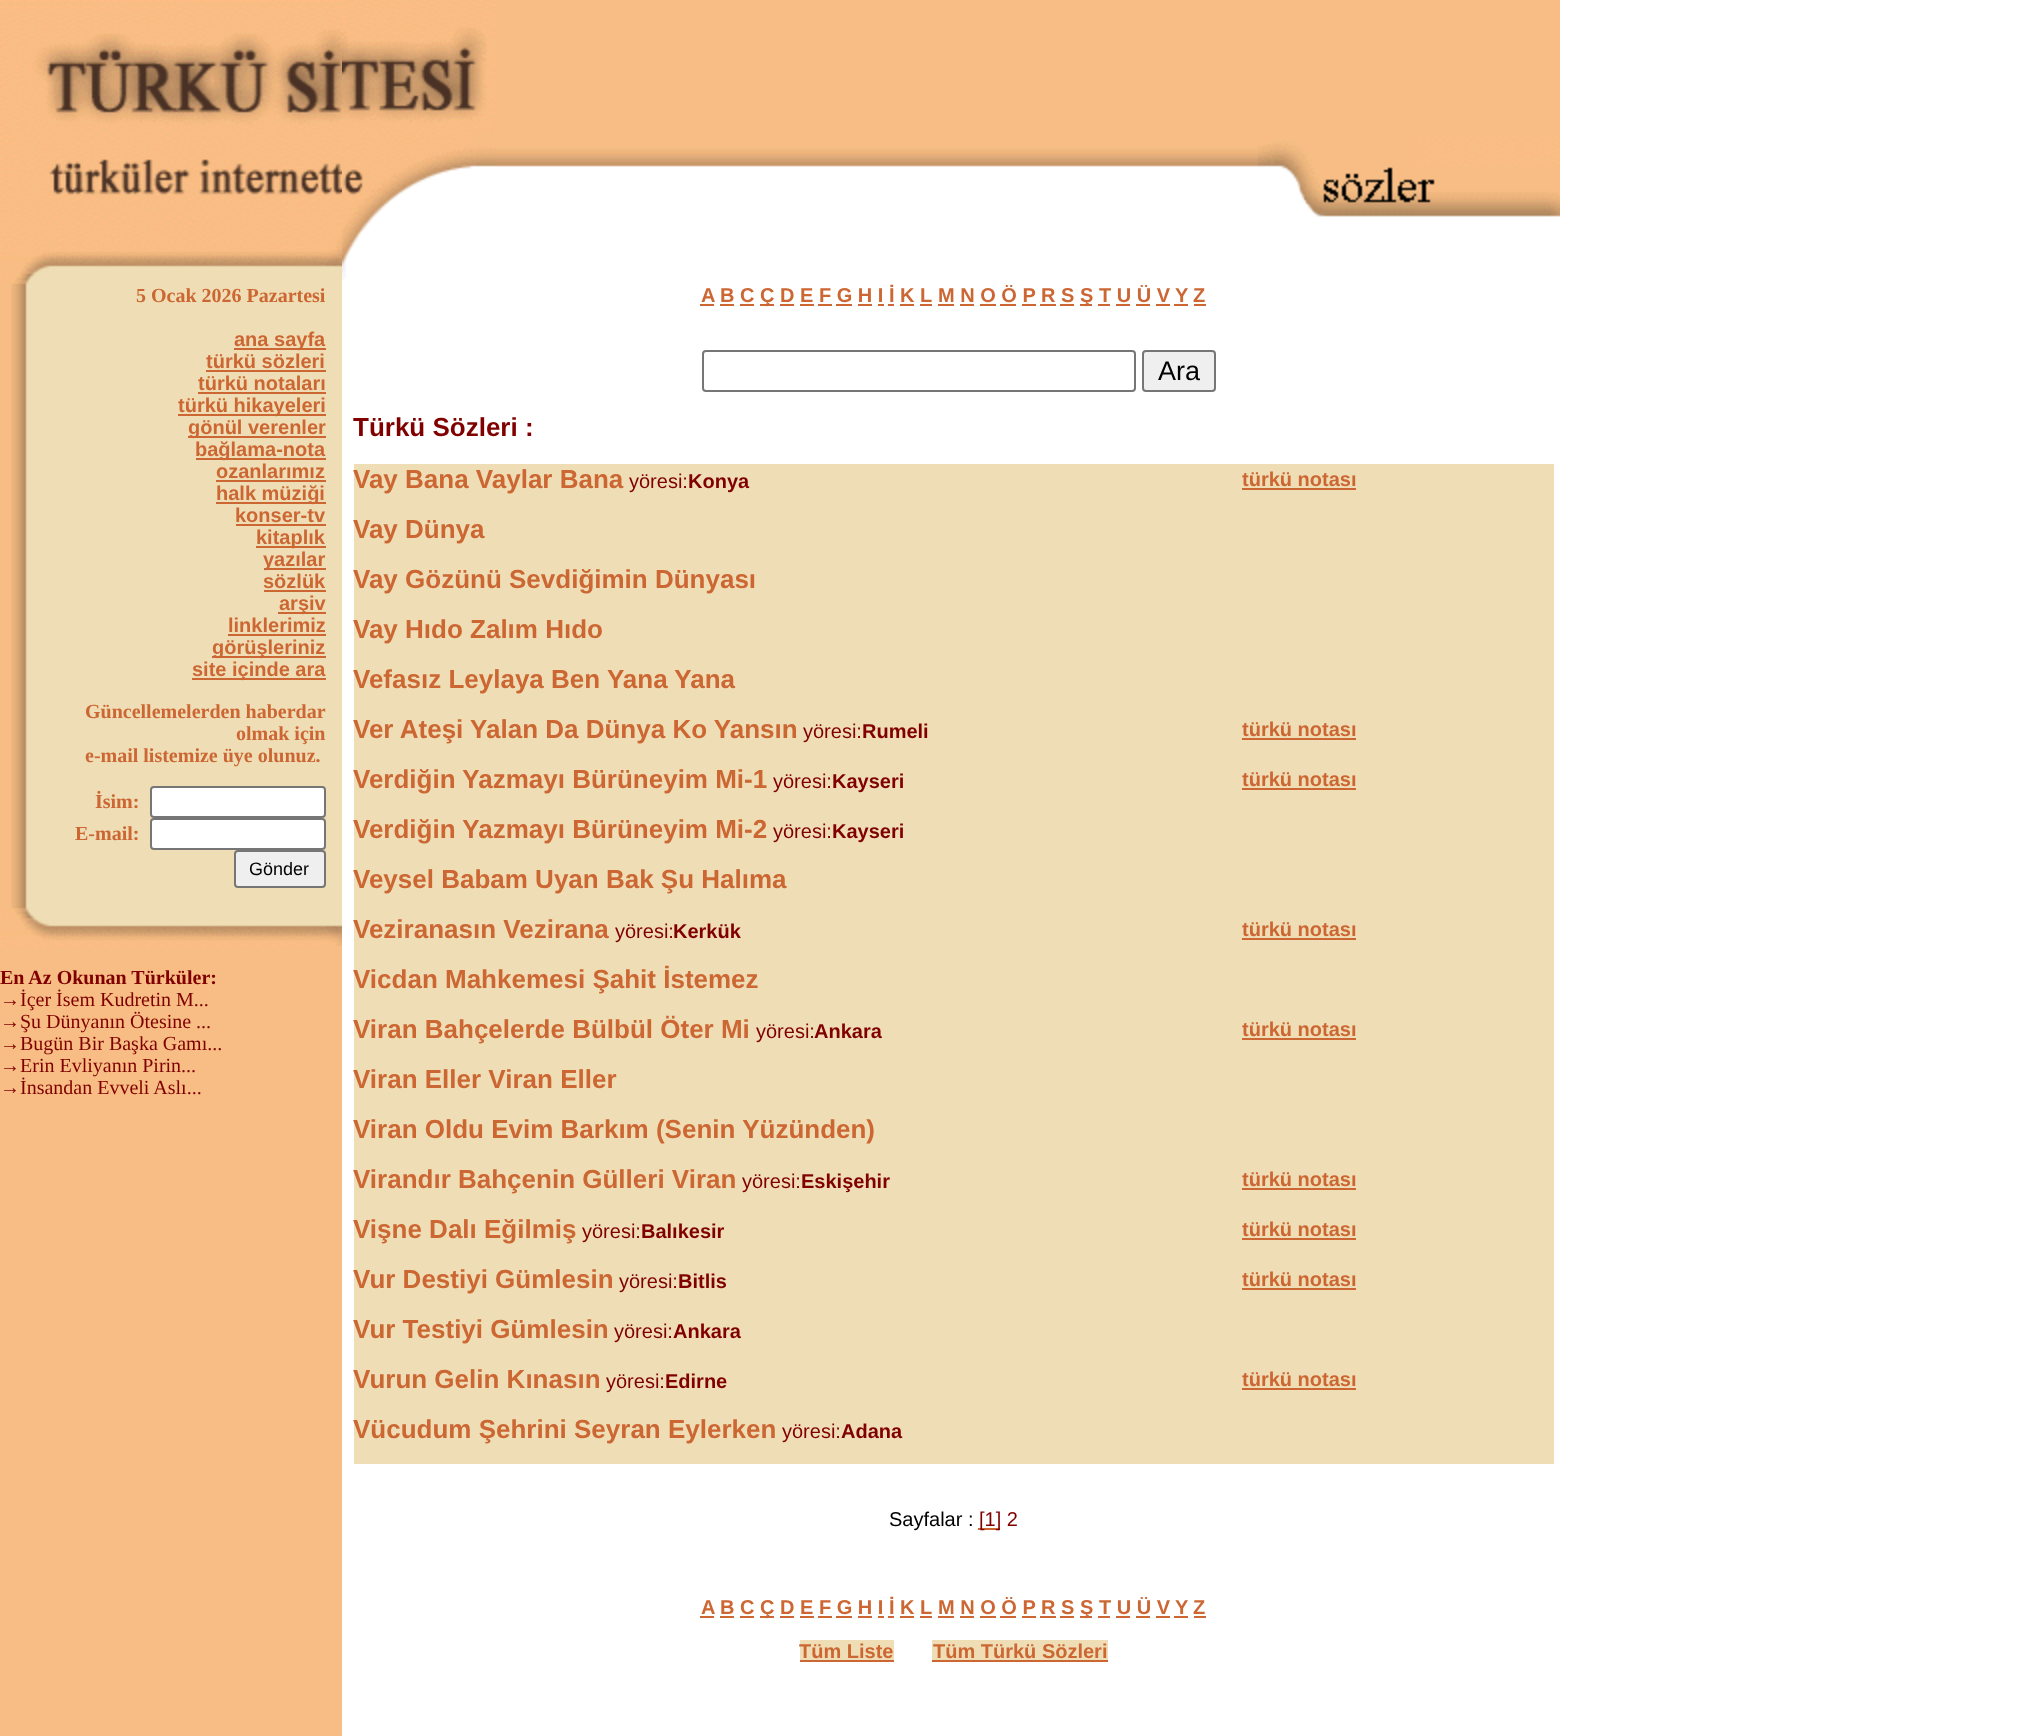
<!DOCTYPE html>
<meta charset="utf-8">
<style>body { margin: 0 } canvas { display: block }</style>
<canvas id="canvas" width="2019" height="1736"></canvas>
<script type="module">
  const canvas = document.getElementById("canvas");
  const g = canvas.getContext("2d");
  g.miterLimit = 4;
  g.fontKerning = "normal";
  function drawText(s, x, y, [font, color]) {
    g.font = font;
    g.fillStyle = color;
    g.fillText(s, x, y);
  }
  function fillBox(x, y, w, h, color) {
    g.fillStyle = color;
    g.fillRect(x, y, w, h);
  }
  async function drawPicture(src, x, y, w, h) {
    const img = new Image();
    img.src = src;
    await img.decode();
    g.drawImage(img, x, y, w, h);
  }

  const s1 = ["bold 20px Liberation Serif", "#CC6633"];
  const s2 = ["bold 20px Liberation Sans", "#CC6633"];
  const s3 = ["18px Liberation Sans", "#000000"];
  const s4 = ["bold 20px Liberation Serif", "#800000"];
  const s5 = ["20px Liberation Serif", "#800000"];
  const s6 = ["27px Liberation Sans", "#000000"];
  const s7 = ["bold 26px Liberation Sans", "#800000"];
  const s8 = ["bold 26px Liberation Sans", "#CC6633"];
  const s9 = ["20px Liberation Sans", "#800000"];
  const s10 = ["bold 20px Liberation Sans", "#800000"];
  const s11 = ["20px Liberation Sans", "#000000"];

  fillBox(0, 0, 2019, 1736, "#FFFFFF");
  await drawPicture("pic1.png", 0, 0, 342, 284);
  await drawPicture("pic2.png", 342, 0, 154, 280);
  fillBox(496, 0, 1064, 136, "#F7BD84");
  await drawPicture("pic3.png", 496, 136, 762, 31);
  await drawPicture("pic4.png", 1258, 136, 302, 81);
  fillBox(0, 284, 342, 1452, "#F7BD84");
  await drawPicture("pic5.png", 11, 284, 43, 624);
  fillBox(54, 284, 288, 624, "#EFDEB5");
  drawText("5 Ocak 2026 Pazartesi", 136, 302, s1);
  fillBox(234, 348, 92, 2, "#CC6633");
  drawText("ana sayfa", 234, 346, s2);
  drawText("türkü sözleri", 206, 368, s2);
  fillBox(206, 370, 120, 2, "#CC6633");
  drawText("türkü notaları", 198, 390, s2);
  fillBox(198, 392, 128, 2, "#CC6633");
  fillBox(178, 414, 148, 2, "#CC6633");
  drawText("türkü hikayeleri", 178, 412, s2);
  fillBox(188, 436, 138, 2, "#CC6633");
  drawText("gönül verenler", 188, 434, s2);
  fillBox(196, 458, 130, 2, "#CC6633");
  drawText("bağlama-nota", 195, 456, s2);
  drawText("ozanlarımız", 216, 478, s2);
  fillBox(216, 480, 110, 2, "#CC6633");
  fillBox(216, 502, 110, 2, "#CC6633");
  drawText("halk müziği", 216, 500, s2);
  drawText("konser-tv", 235, 522, s2);
  fillBox(236, 524, 90, 2, "#CC6633");
  fillBox(256, 546, 70, 2, "#CC6633");
  drawText("kitaplık", 256, 544, s2);
  fillBox(264, 568, 62, 2, "#CC6633");
  drawText("yazılar", 263, 566, s2);
  drawText("sözlük", 263, 588, s2);
  fillBox(264, 590, 62, 2, "#CC6633");
  fillBox(278, 612, 48, 2, "#CC6633");
  drawText("arşiv", 279, 610, s2);
  drawText("linklerimiz", 228, 632, s2);
  fillBox(228, 634, 98, 2, "#CC6633");
  fillBox(212, 656, 114, 2, "#CC6633");
  drawText("görüşleriniz", 212, 654, s2);
  fillBox(192, 678, 134, 2, "#CC6633");
  drawText("site içinde ara", 192, 676, s2);
  drawText("Güncellemelerden haberdar", 85, 718, s1);
  drawText("olmak için", 236, 740, s1);
  drawText("e-mail listemize üye olunuz.", 85, 762, s1);
  drawText("İsim:", 95, 808, s1);
  g.fillStyle = "#FFFFFF";
  g.beginPath();
  g.roundRect(151, 787, 174, 30, 3);
  g.fill();
  g.strokeStyle = "#767676";
  g.lineWidth = 2;
  g.stroke();
  drawText("E-mail:", 75, 840, s1);
  g.fillStyle = "#FFFFFF";
  g.beginPath();
  g.roundRect(151, 819, 174, 30, 3);
  g.fill();
  g.stroke();
  g.fillStyle = "#EFEFEF";
  g.beginPath();
  g.roundRect(235, 851, 90, 36, 3);
  g.fill();
  g.stroke();
  drawText("Gönder", 249, 875, s3);
  await drawPicture("pic6.png", 0, 908, 342, 38);
  drawText("En Az Okunan Türküler:", 0, 984, s4);
  drawText("→İçer İsem Kudretin M...", 0, 1006, s5);
  drawText("→Şu Dünyanın Ötesine ...", 0, 1028, s5);
  drawText("→Bugün Bir Başka Gamı...", 0, 1050, s5);
  drawText("→Erin Evliyanın Pirin...", 0, 1072, s5);
  drawText("→İnsandan Evveli Aslı...", 0, 1094, s5);
  drawText("A", 701, 302, s2);
  fillBox(700, 304, 14, 2, "#CC6633");
  drawText("B C", 720, 302, s2);
  fillBox(720, 304, 14, 2, "#CC6633");
  fillBox(740, 304, 14, 2, "#CC6633");
  fillBox(760, 304, 14, 2, "#CC6633");
  drawText("Ç D E F G H I İ K L", 760, 302, s2);
  fillBox(780, 304, 14, 2, "#CC6633");
  fillBox(800, 304, 14, 2, "#CC6633");
  fillBox(818, 304, 14, 2, "#CC6633");
  fillBox(836, 304, 16, 2, "#CC6633");
  fillBox(858, 304, 14, 2, "#CC6633");
  fillBox(878, 304, 6, 2, "#CC6633");
  fillBox(888, 304, 6, 2, "#CC6633");
  fillBox(900, 304, 14, 2, "#CC6633");
  fillBox(920, 304, 12, 2, "#CC6633");
  drawText("M N O Ö P", 938, 302, s2);
  fillBox(938, 304, 16, 2, "#CC6633");
  fillBox(960, 304, 14, 2, "#CC6633");
  fillBox(980, 304, 16, 2, "#CC6633");
  fillBox(1000, 304, 16, 2, "#CC6633");
  fillBox(1022, 304, 14, 2, "#CC6633");
  drawText("R S", 1041, 302, s2);
  fillBox(1040, 304, 16, 2, "#CC6633");
  fillBox(1060, 304, 14, 2, "#CC6633");
  fillBox(1080, 304, 12, 2, "#CC6633");
  drawText("Ş T U Ü V", 1080, 302, s2);
  fillBox(1098, 304, 12, 2, "#CC6633");
  fillBox(1116, 304, 14, 2, "#CC6633");
  fillBox(1136, 304, 14, 2, "#CC6633");
  fillBox(1156, 304, 14, 2, "#CC6633");
  drawText("Y", 1175, 302, s2);
  fillBox(1174, 304, 14, 2, "#CC6633");
  drawText("Z", 1193, 302, s2);
  fillBox(1194, 304, 12, 2, "#CC6633");
  g.beginPath();
  g.roundRect(703, 351, 432, 40, 3);
  g.stroke();
  g.fillStyle = "#EFEFEF";
  g.beginPath();
  g.roundRect(1143, 351, 72, 40, 3);
  g.fill();
  g.stroke();
  drawText("Ara", 1158, 380, s6);
  drawText("Türkü Sözleri :", 353, 436, s7);
  fillBox(354, 464, 1200, 1000, "#EFDEB5");
  drawText("Vay Bana Vaylar Bana", 353, 488, s8);
  drawText("yöresi:", 629, 488, s9);
  drawText("Konya", 688, 488, s10);
  drawText("türkü notası", 1242, 486, s2);
  fillBox(1242, 488, 114, 2, "#CC6633");
  drawText("Vay Dünya", 353, 538, s8);
  drawText("Vay Gözünü Sevdiğimin Dünyası", 353, 588, s8);
  drawText("Vay Hıdo Zalım Hıdo", 353, 638, s8);
  drawText("Vefasız Leylaya Ben Yana Yana", 353, 688, s8);
  drawText("Ver Ateşi Yalan Da Dünya Ko Yansın", 353, 738, s8);
  drawText("yöresi:", 803, 738, s9);
  drawText("Rumeli", 862, 738, s10);
  drawText("türkü notası", 1242, 736, s2);
  fillBox(1242, 738, 114, 2, "#CC6633");
  drawText("Verdiğin Yazmayı Bürüneyim Mi-1", 353, 788, s8);
  drawText("yöresi:", 773, 788, s9);
  drawText("Kayseri", 832, 788, s10);
  drawText("türkü notası", 1242, 786, s2);
  fillBox(1242, 788, 114, 2, "#CC6633");
  drawText("Verdiğin Yazmayı Bürüneyim Mi-2", 353, 838, s8);
  drawText("yöresi:", 773, 838, s9);
  drawText("Kayseri", 832, 838, s10);
  drawText("Veysel Babam Uyan Bak Şu Halıma", 353, 888, s8);
  drawText("Veziranasın Vezirana", 353, 938, s8);
  drawText("yöresi:", 615, 938, s9);
  drawText("Kerkük", 673, 938, s10);
  drawText("türkü notası", 1242, 936, s2);
  fillBox(1242, 938, 114, 2, "#CC6633");
  drawText("Vicdan Mahkemesi Şahit İstemez", 353, 988, s8);
  drawText("Viran Bahçelerde Bülbül Öter Mi", 353, 1038, s8);
  drawText("yöresi:", 756, 1038, s9);
  drawText("Ankara", 814, 1038, s10);
  drawText("türkü notası", 1242, 1036, s2);
  fillBox(1242, 1038, 114, 2, "#CC6633");
  drawText("Viran Eller Viran Eller", 353, 1088, s8);
  drawText("Viran Oldu Evim Barkım (Senin Yüzünden)", 353, 1138, s8);
  drawText("Virandır Bahçenin Gülleri Viran", 353, 1188, s8);
  drawText("yöresi:", 742, 1188, s9);
  drawText("Eskişehir", 801, 1188, s10);
  drawText("türkü notası", 1242, 1186, s2);
  fillBox(1242, 1188, 114, 2, "#CC6633");
  drawText("Vişne Dalı Eğilmiş", 353, 1238, s8);
  drawText("yöresi:", 582, 1238, s9);
  drawText("Balıkesir", 641, 1238, s10);
  drawText("türkü notası", 1242, 1236, s2);
  fillBox(1242, 1238, 114, 2, "#CC6633");
  drawText("Vur Destiyi Gümlesin", 353, 1288, s8);
  drawText("yöresi:", 619, 1288, s9);
  drawText("Bitlis", 678, 1288, s10);
  drawText("türkü notası", 1242, 1286, s2);
  fillBox(1242, 1288, 114, 2, "#CC6633");
  drawText("Vur Testiyi Gümlesin", 353, 1338, s8);
  drawText("yöresi:", 614, 1338, s9);
  drawText("Ankara", 673, 1338, s10);
  drawText("Vurun Gelin Kınasın", 353, 1388, s8);
  drawText("yöresi:", 606, 1388, s9);
  drawText("Edirne", 665, 1388, s10);
  drawText("türkü notası", 1242, 1386, s2);
  fillBox(1242, 1388, 114, 2, "#CC6633");
  drawText("Vücudum Şehrini Seyran Eylerken", 353, 1438, s8);
  drawText("yöresi:", 782, 1438, s9);
  drawText("Adana", 841, 1438, s10);
  drawText("Sayfalar :", 889, 1526, s11);
  fillBox(978, 1528, 22, 2, "#CC6633");
  drawText("[1] 2", 979, 1526, s9);
  drawText("A", 701, 1614, s2);
  fillBox(700, 1616, 14, 2, "#CC6633");
  drawText("B C", 720, 1614, s2);
  fillBox(720, 1616, 14, 2, "#CC6633");
  fillBox(740, 1616, 14, 2, "#CC6633");
  fillBox(760, 1616, 14, 2, "#CC6633");
  drawText("Ç D E F G H I İ K L", 760, 1614, s2);
  fillBox(780, 1616, 14, 2, "#CC6633");
  fillBox(800, 1616, 14, 2, "#CC6633");
  fillBox(818, 1616, 14, 2, "#CC6633");
  fillBox(836, 1616, 16, 2, "#CC6633");
  fillBox(858, 1616, 14, 2, "#CC6633");
  fillBox(878, 1616, 6, 2, "#CC6633");
  fillBox(888, 1616, 6, 2, "#CC6633");
  fillBox(900, 1616, 14, 2, "#CC6633");
  fillBox(920, 1616, 12, 2, "#CC6633");
  drawText("M N O Ö P", 938, 1614, s2);
  fillBox(938, 1616, 16, 2, "#CC6633");
  fillBox(960, 1616, 14, 2, "#CC6633");
  fillBox(980, 1616, 16, 2, "#CC6633");
  fillBox(1000, 1616, 16, 2, "#CC6633");
  fillBox(1022, 1616, 14, 2, "#CC6633");
  drawText("R S", 1041, 1614, s2);
  fillBox(1040, 1616, 16, 2, "#CC6633");
  fillBox(1060, 1616, 14, 2, "#CC6633");
  fillBox(1080, 1616, 12, 2, "#CC6633");
  drawText("Ş T U Ü V", 1080, 1614, s2);
  fillBox(1098, 1616, 12, 2, "#CC6633");
  fillBox(1116, 1616, 14, 2, "#CC6633");
  fillBox(1136, 1616, 14, 2, "#CC6633");
  fillBox(1156, 1616, 14, 2, "#CC6633");
  drawText("Y", 1175, 1614, s2);
  fillBox(1174, 1616, 14, 2, "#CC6633");
  drawText("Z", 1193, 1614, s2);
  fillBox(1194, 1616, 12, 2, "#CC6633");
  fillBox(800, 1640, 94, 20, "#EFDEB5");
  drawText("Tüm Liste", 799, 1658, s2);
  fillBox(800, 1660, 94, 2, "#CC6633");
  fillBox(932, 1640, 176, 20, "#EFDEB5");
  drawText("Tüm Türkü Sözleri", 933, 1658, s2);
  fillBox(932, 1660, 176, 2, "#CC6633");
</script>
